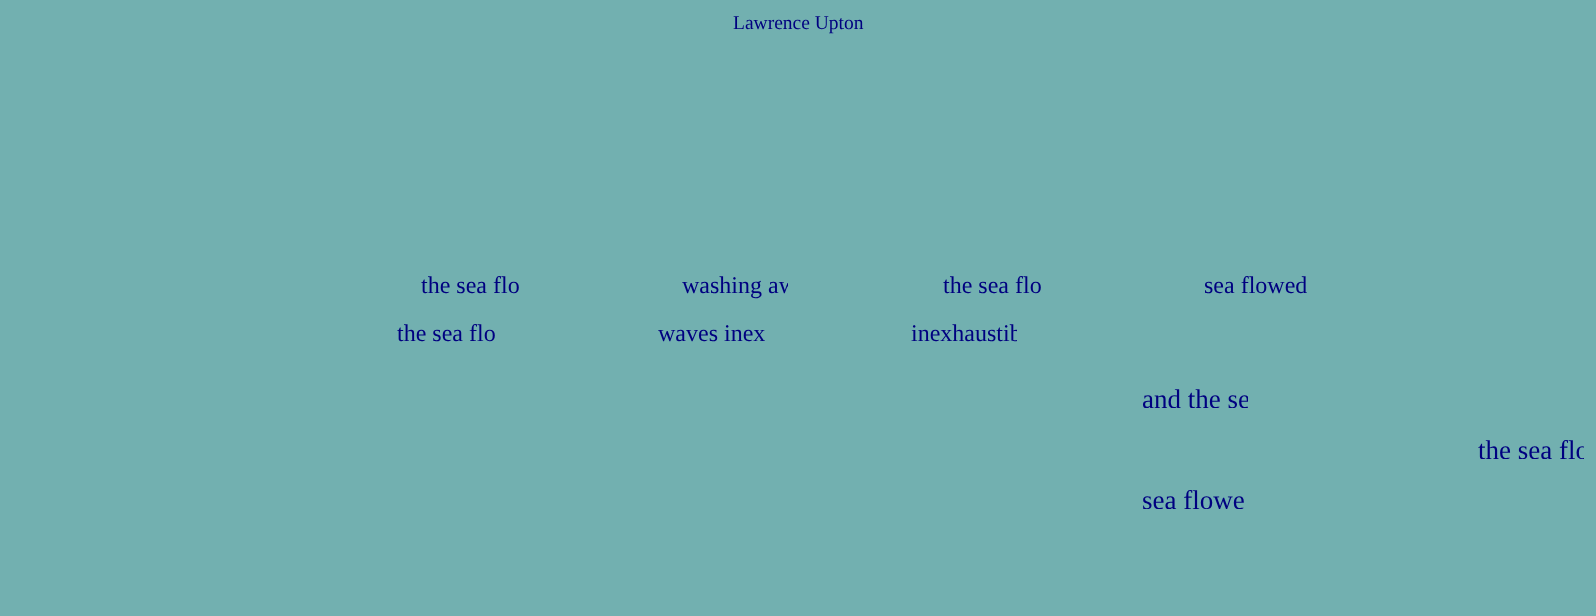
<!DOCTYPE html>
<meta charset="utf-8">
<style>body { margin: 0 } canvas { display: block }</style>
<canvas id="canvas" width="1596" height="616"></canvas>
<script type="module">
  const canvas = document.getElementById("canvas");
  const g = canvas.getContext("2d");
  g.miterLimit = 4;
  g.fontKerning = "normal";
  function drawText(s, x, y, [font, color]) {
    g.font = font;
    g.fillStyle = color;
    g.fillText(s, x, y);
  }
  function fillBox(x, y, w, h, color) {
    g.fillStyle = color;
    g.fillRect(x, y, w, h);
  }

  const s1 = ["19.5px Liberation Serif", "#000080"];
  const s2 = ["24px Liberation Serif", "#000080"];
  const s3 = ["27px Liberation Serif", "#000080"];

  fillBox(0, 0, 1596, 616, "#72B0B0");
  drawText("Lawrence Upton", 733, 29, s1);
  drawText("the sea flo", 421, 293, s2);
  g.save();
  g.beginPath();
  g.rect(548, 272, 240, 27);
  g.clip();
  drawText("washing aw", 682, 293, s2);
  g.restore();
  drawText("the sea flo", 943, 293, s2);
  drawText("sea flowed", 1204, 293, s2);
  drawText("the sea flo", 397, 341, s2);
  drawText("waves inex", 658, 341, s2);
  g.save();
  g.beginPath();
  g.rect(840, 320, 177, 27);
  g.clip();
  drawText("inexhaustib", 911, 341, s2);
  g.restore();
  g.save();
  g.beginPath();
  g.rect(348, 384, 900, 24);
  g.clip();
  drawText("and the se", 1142, 408, s3);
  g.restore();
  g.save();
  g.beginPath();
  g.rect(684, 435, 900, 24);
  g.clip();
  drawText("the sea flo", 1478, 459, s3);
  g.restore();
  g.save();
  g.beginPath();
  g.rect(348, 486, 900, 23);
  g.clip();
  drawText("sea flowe", 1142, 509, s3);
  g.restore();
</script>
